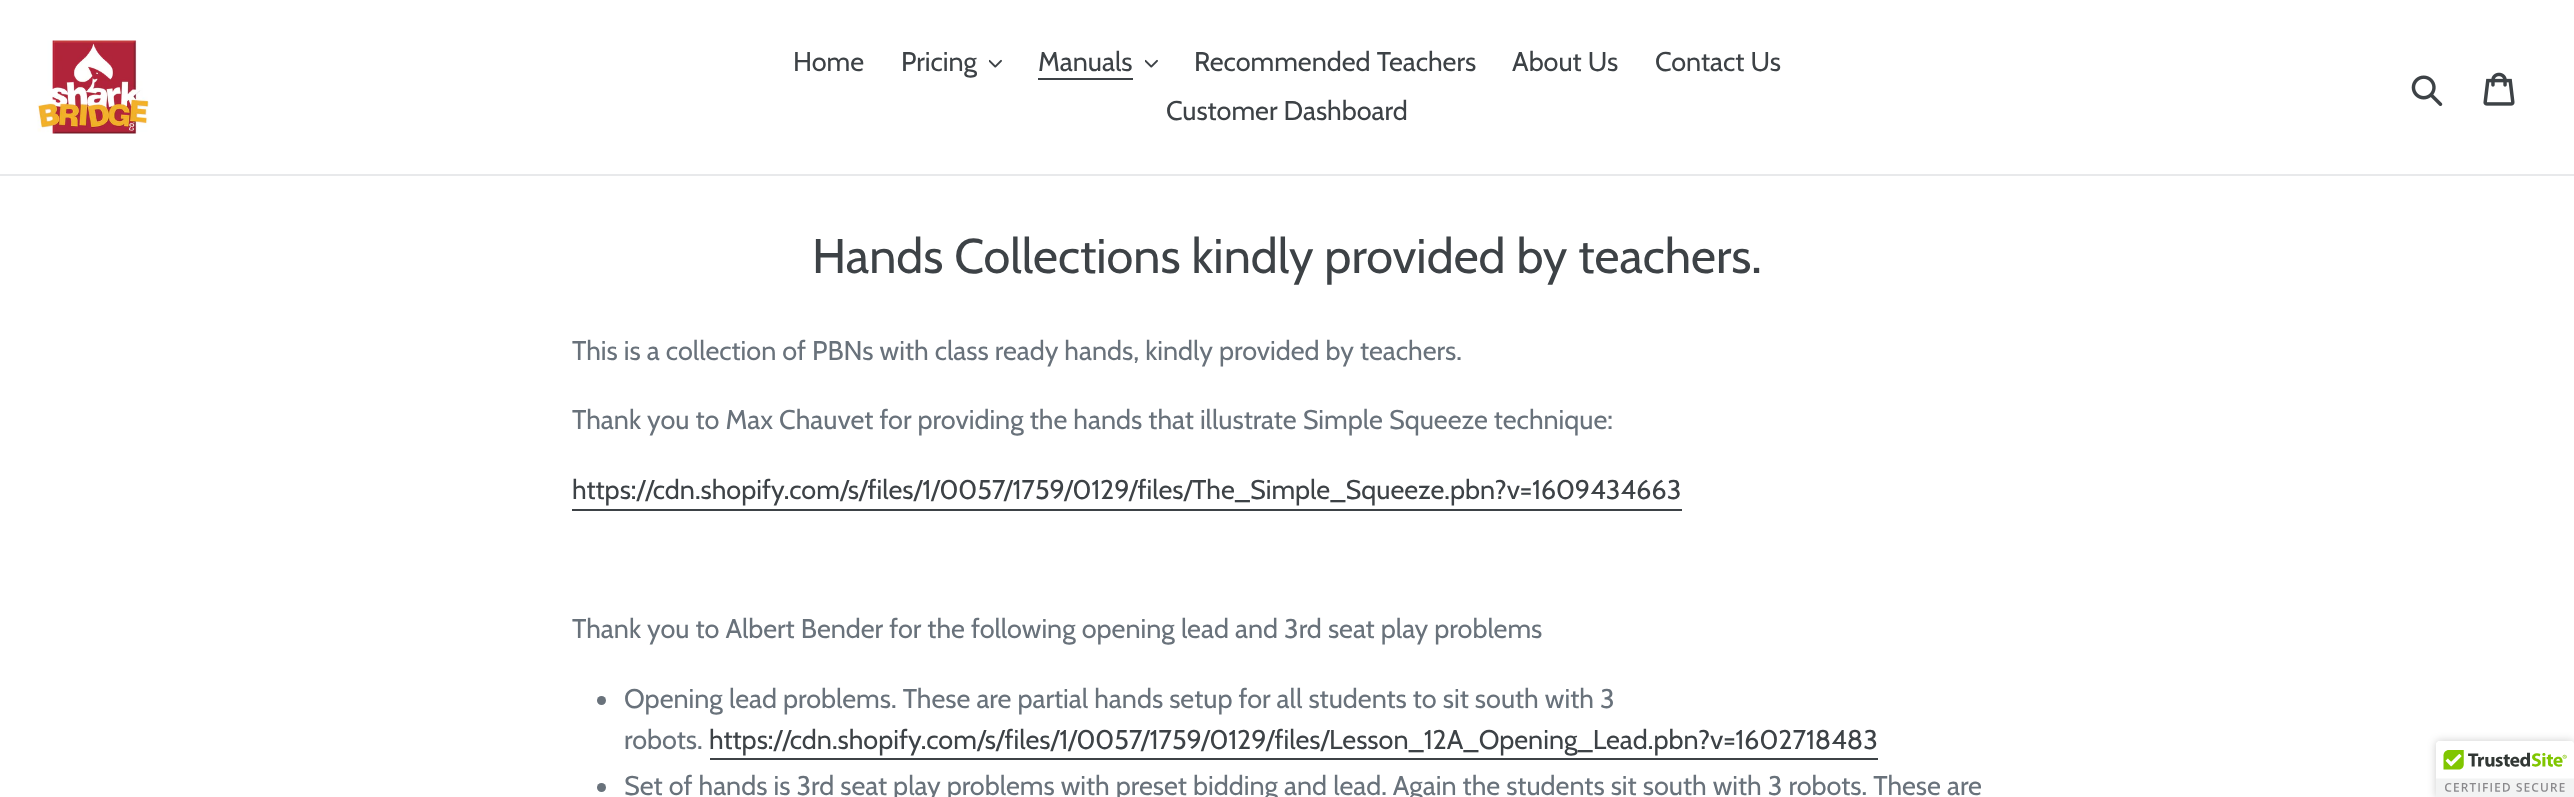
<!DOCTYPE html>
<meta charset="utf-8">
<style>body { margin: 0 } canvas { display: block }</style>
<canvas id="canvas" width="2574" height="797"></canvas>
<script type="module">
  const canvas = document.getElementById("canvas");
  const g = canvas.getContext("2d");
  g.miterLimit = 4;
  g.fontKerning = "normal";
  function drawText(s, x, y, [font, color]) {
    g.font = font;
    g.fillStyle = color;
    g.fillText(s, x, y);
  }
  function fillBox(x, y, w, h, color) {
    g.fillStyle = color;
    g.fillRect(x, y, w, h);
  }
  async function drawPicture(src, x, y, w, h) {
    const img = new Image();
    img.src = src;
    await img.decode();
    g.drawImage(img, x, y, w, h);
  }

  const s1 = ["27px Cabin", "#3D4246"];
  const s2 = ["48.6px Cabin", "#3D4246"];
  const s3 = ["27px Cabin", "#69727B"];

  fillBox(0, 0, 2574, 797, "#FFFFFF");
  fillBox(0, 174, 2574, 2, "#E8E9EB");
  await drawPicture("pic1.png", 37, 40, 112, 94);
  drawText("Home", 793, 71, s1);
  drawText("Pricing", 901, 71, s1);
  await drawPicture("pic2.png", 989, 59, 13, 9);
  drawText("Manuals", 1038, 71, s1);
  fillBox(1038, 78, 95, 2, "#3D4246");
  await drawPicture("pic2.png", 1145, 59, 13, 9);
  drawText("Recommended Teachers", 1194, 71, s1);
  drawText("About Us", 1512, 71, s1);
  drawText("Contact Us", 1655, 71, s1);
  drawText("Customer Dashboard", 1166, 120, s1);
  await drawPicture("pic3.png", 2411, 75, 32, 32);
  await drawPicture("pic4.png", 2483, 72, 32, 34);
  drawText("Hands Collections kindly provided by teachers.", 812, 273, s2);
  drawText("This is a collection of PBNs with class ready hands, kindly provided by teachers.", 572, 360, s3);
  drawText("Thank you to Max Chauvet for providing the hands that illustrate Simple Squeeze technique:", 572, 429, s3);
  drawText("https://cdn.shopify.com/s/files/1/0057/1759/0129/files/The_Simple_Squeeze.pbn?v=1609434663", 572, 499, s1);
  fillBox(572, 509, 1110, 2, "#3D4246");
  drawText("Thank you to Albert Bender for the following opening lead and 3rd seat play problems", 572, 638, s3);
  g.beginPath();
  g.arc(601.5, 700.5, 4.5, 0, Math.PI * 2);
  g.fill();
  drawText("Opening lead problems. These are partial hands setup for all students to sit south with 3", 624, 708, s3);
  drawText("robots.", 624, 749, s3);
  drawText("https://cdn.shopify.com/s/files/1/0057/1759/0129/files/Lesson_12A_Opening_Lead.pbn?v=1602718483", 709, 749, s1);
  fillBox(710, 758, 1168, 2, "#3D4246");
  g.fillStyle = "#69727B";
  g.beginPath();
  g.arc(601.5, 787.5, 4.5, 0, Math.PI * 2);
  g.fill();
  drawText("Set of hands is 3rd seat play problems with preset bidding and lead. Again the students sit south with 3 robots. These are", 624, 795, s3);
  g.fillStyle = "rgba(0, 0, 0, 0.2)";
  g.filter = "blur(4px)";
  g.beginPath();
  g.roundRect(2436, 741, 138, 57, 3);
  g.fill();
  g.filter = "none";
  g.fillStyle = "#FFFFFF";
  g.beginPath();
  g.moveTo(2439, 741);
  g.lineTo(2574, 741);
  g.lineTo(2574, 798);
  g.lineTo(2436, 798);
  g.lineTo(2436, 744);
  g.bezierCurveTo(2436, 742.5, 2437.5, 741, 2439, 741);
  g.closePath();
  g.fill();
  await drawPicture("pic5.png", 2436, 741, 138, 56);
</script>
